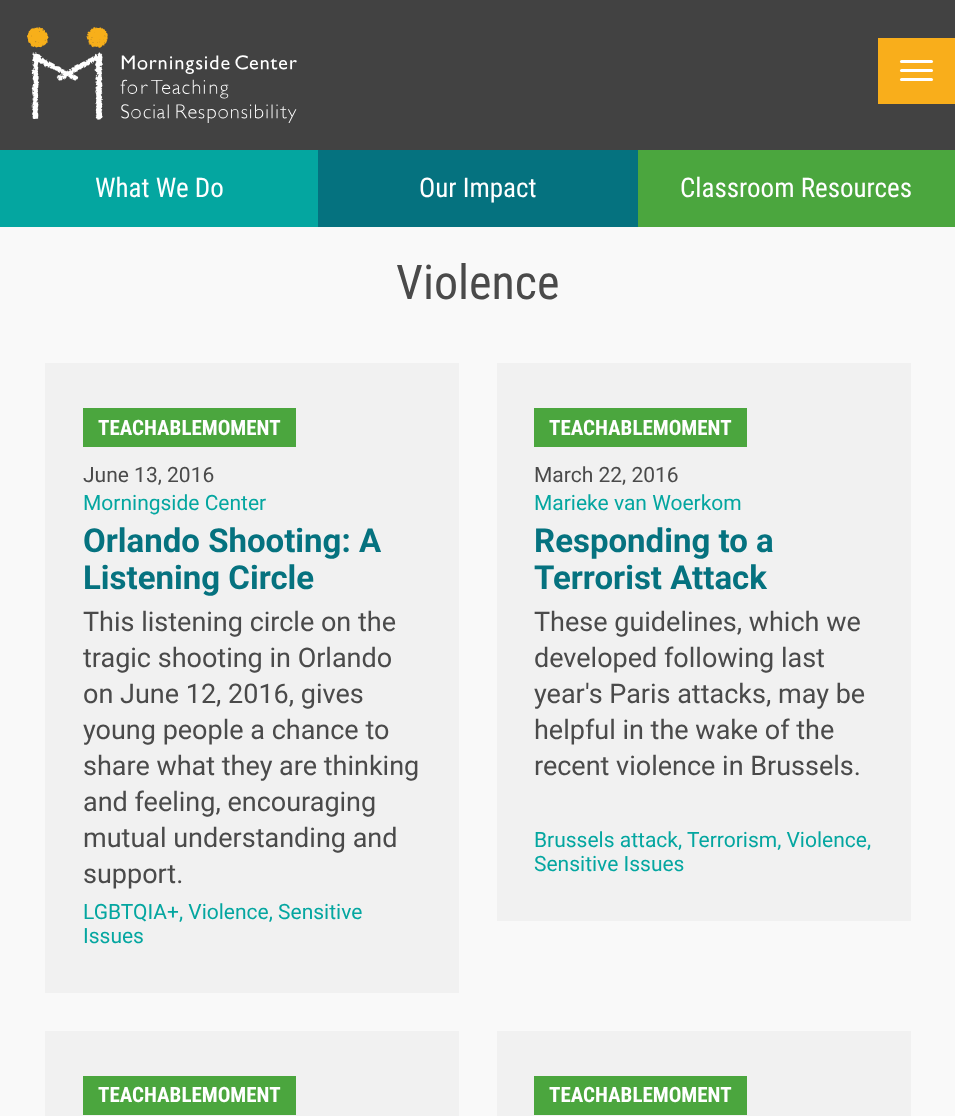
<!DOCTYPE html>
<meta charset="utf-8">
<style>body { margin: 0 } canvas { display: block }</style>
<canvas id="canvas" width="955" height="1116"></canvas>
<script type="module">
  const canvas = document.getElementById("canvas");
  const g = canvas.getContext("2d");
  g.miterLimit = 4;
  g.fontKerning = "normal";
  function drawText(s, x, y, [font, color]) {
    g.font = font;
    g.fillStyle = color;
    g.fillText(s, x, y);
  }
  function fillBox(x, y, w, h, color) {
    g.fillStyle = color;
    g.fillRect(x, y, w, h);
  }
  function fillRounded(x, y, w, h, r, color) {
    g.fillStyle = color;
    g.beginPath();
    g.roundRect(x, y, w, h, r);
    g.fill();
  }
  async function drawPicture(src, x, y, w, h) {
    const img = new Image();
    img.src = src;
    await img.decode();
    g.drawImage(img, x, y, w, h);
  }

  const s1 = ["27px Roboto Condensed", "#FFFFFF"];
  const s2 = ["48px Roboto Condensed", "#4A4A4A"];
  const s3 = ["bold 21px Roboto Condensed", "#FFFFFF"];
  const s4 = ["21px Roboto", "#4A4A4A"];
  const s5 = ["21px Roboto", "#04A6A0"];
  const s6 = ["bold 33px Roboto", "#05727F"];
  const s7 = ["27px Roboto", "#4A4A4A"];

  fillBox(0, 0, 955, 1116, "#F9F9F9");
  fillBox(0, 0, 955, 150, "#424242");
  fillBox(878, 38, 77, 66, "#F9AE1B");
  fillRounded(900, 60, 33, 3, 1.5, "#FFFFFF");
  fillRounded(900, 69, 33, 3, 1.5, "#FFFFFF");
  fillRounded(900, 78, 33, 3, 1.5, "#FFFFFF");
  await drawPicture("pic1.png", 27, 27, 270, 96);
  fillBox(638, 150, 317, 77, "#4BA63E");
  fillBox(0, 150, 318, 77, "#04A6A0");
  drawText("What We Do", 95, 197, s1);
  fillBox(318, 150, 320, 77, "#05727F");
  drawText("Our Impact", 419, 197, s1);
  drawText("Classroom Resources", 680, 197, s1);
  drawText("Violence", 396, 299, s2);
  fillBox(45, 363, 414, 630, "#F1F1F1");
  fillBox(83, 408, 213, 39, "#4BA63E");
  drawText("TEACHABLEMOMENT", 98, 435, s3);
  drawText("June 13, 2016", 83, 482, s4);
  drawText("Morningside Center", 83, 510, s5);
  drawText("Orlando Shooting: A", 83, 552, s6);
  drawText("Listening Circle", 83, 589, s6);
  drawText("This listening circle on the", 83, 631, s7);
  drawText("tragic shooting in Orlando", 83, 667, s7);
  drawText("on June 12, 2016, gives", 83, 703, s7);
  drawText("young people a chance to", 83, 739, s7);
  drawText("share what they are thinking", 83, 775, s7);
  drawText("and feeling, encouraging", 83, 811, s7);
  drawText("mutual understanding and", 83, 847, s7);
  drawText("support.", 83, 883, s7);
  drawText("LGBTQIA+, Violence, Sensitive", 83, 919, s5);
  drawText("Issues", 83, 943, s5);
  fillBox(497, 363, 414, 558, "#F1F1F1");
  fillBox(534, 408, 213, 39, "#4BA63E");
  drawText("TEACHABLEMOMENT", 549, 435, s3);
  drawText("March 22, 2016", 534, 482, s4);
  drawText("Marieke van Woerkom", 534, 510, s5);
  drawText("Responding to a", 534, 552, s6);
  drawText("Terrorist Attack", 534, 589, s6);
  drawText("These guidelines, which we", 534, 631, s7);
  drawText("developed following last", 534, 667, s7);
  drawText("year's Paris attacks, may be", 534, 703, s7);
  drawText("helpful in the wake of the", 534, 739, s7);
  drawText("recent violence in Brussels.", 534, 775, s7);
  drawText("Brussels attack,", 534, 847, s5);
  drawText("Terrorism, Violence,", 687, 847, s5);
  drawText("Sensitive Issues", 534, 871, s5);
  fillBox(45, 1031, 414, 85, "#F1F1F1");
  fillBox(83, 1076, 213, 39, "#4BA63E");
  drawText("TEACHABLEMOMENT", 98, 1102, s3);
  fillBox(497, 1031, 414, 85, "#F1F1F1");
  fillBox(534, 1076, 213, 39, "#4BA63E");
  drawText("TEACHABLEMOMENT", 549, 1102, s3);
</script>
